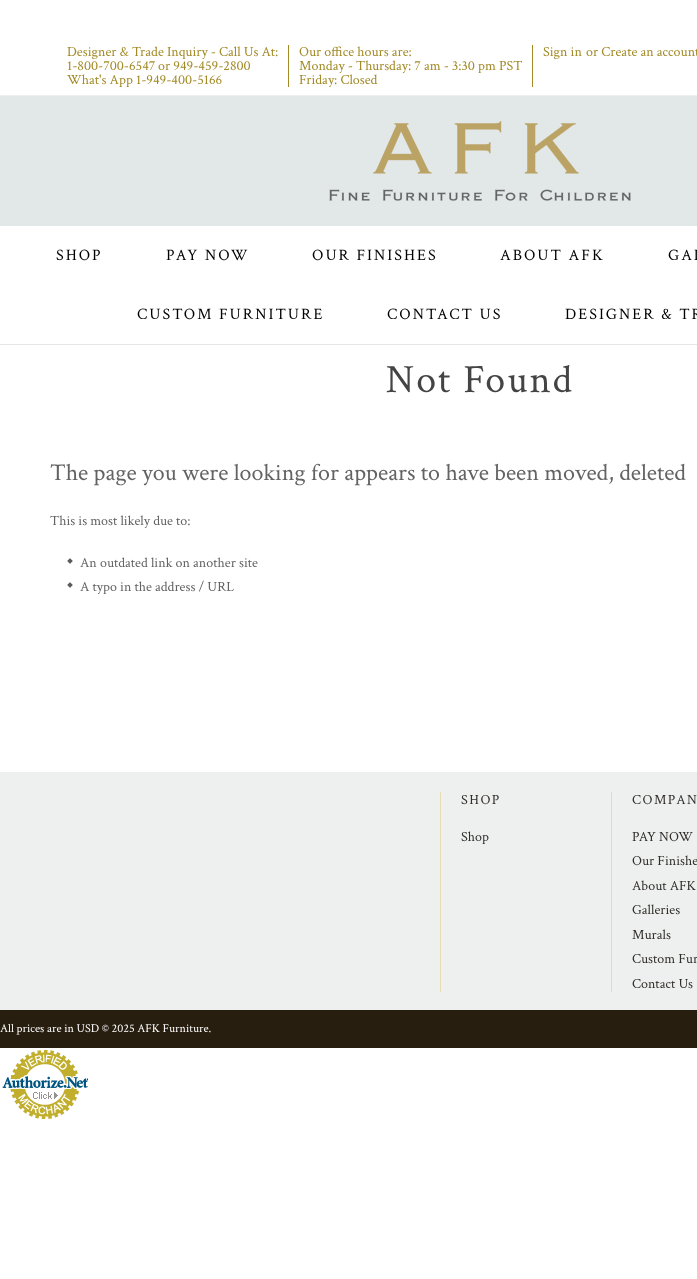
<!DOCTYPE html>
<meta charset="utf-8">
<style>body { margin: 0 } canvas { display: block }</style>
<canvas id="canvas" width="697" height="1279"></canvas>
<script type="module">
  const canvas = document.getElementById("canvas");
  const g = canvas.getContext("2d");
  g.miterLimit = 4;
  g.fontKerning = "normal";
  function drawText(s, x, y, [font, color]) {
    g.font = font;
    g.fillStyle = color;
    g.fillText(s, x, y);
  }
  function fillBox(x, y, w, h, color) {
    g.fillStyle = color;
    g.fillRect(x, y, w, h);
  }
  async function drawPicture(src, x, y, w, h) {
    const img = new Image();
    img.src = src;
    await img.decode();
    g.drawImage(img, x, y, w, h);
  }

  const s1 = ["14px Crimson Text", "#A28A26"];
  const s2 = ["16px Crimson Text", "#000000"];
  const s3 = ["40px Crimson Text", "#444444"];
  const s4 = ["24px Crimson Text", "#636363"];
  const s5 = ["14px Crimson Text", "#636363"];
  const s6 = ["14px Crimson Text", "#312E29"];
  const s7 = ["12px Crimson Text", "#FFFFFF"];

  fillBox(0, 0, 697, 1279, "#FFFFFF");
  fillBox(0, 95, 697, 1, "#EEF0F0");
  fillBox(288, 45, 1, 42, "#A28A26");
  drawText("Designer & Trade Inquiry - Call Us At:", 67, 56, s1);
  drawText("1-800-700-6547", 67, 70, s1);
  drawText("or 949-459-2800", 158, 70, s1);
  drawText("What's App 1-949-400-5166", 67, 84, s1);
  fillBox(532, 45, 1, 42, "#A28A26");
  drawText("Our office hours are:", 299, 56, s1);
  drawText("Monday - Thursday: 7 am - 3:30 pm PST", 299, 70, s1);
  drawText("Friday: Closed", 299, 84, s1);
  drawText("Sign in", 543, 56, s1);
  drawText("or Create an account", 586, 56, s1);
  fillBox(0, 96, 697, 130, "#E2E7E8");
  await drawPicture("pic1.png", 329, 121, 302, 80);
  fillBox(0, 344, 697, 1, "#E6E6E6");
  g.letterSpacing = "2px";
  drawText("SHOP", 56, 260, s2);
  drawText("PAY NOW", 166, 260, s2);
  drawText("OUR FINISHES", 312, 260, s2);
  drawText("ABOUT AFK", 500, 260, s2);
  drawText("GAL", 668, 260, s2);
  drawText("CUSTOM FURNITURE", 137, 319, s2);
  drawText("CONTACT US", 387, 319, s2);
  drawText("DESIGNER & TR", 565, 319, s2);
  drawText("Not Found", 386, 392, s3);
  g.letterSpacing = "0px";
  drawText("The page you were looking for appears to have been moved, deleted", 50, 480, s4);
  drawText("This is most likely due to:", 50, 525, s5);
  await drawPicture("pic2.png", 67, 558, 6, 6);
  drawText("An outdated link on another site", 80, 567, s5);
  await drawPicture("pic2.png", 67, 582, 6, 6);
  drawText("A typo in the address / URL", 80, 591, s5);
  fillBox(0, 772, 697, 238, "#EEF0F0");
  fillBox(440, 792, 1, 200, "#E8DCB1");
  g.letterSpacing = "1.5px";
  drawText("SHOP", 461, 804, s6);
  g.letterSpacing = "0px";
  drawText("Shop", 461, 841, s6);
  fillBox(611, 792, 1, 200, "#E8DCB1");
  g.letterSpacing = "1.5px";
  drawText("COMPAN", 632, 804, s6);
  g.letterSpacing = "0px";
  drawText("PAY NOW", 632, 841, s6);
  drawText("Our Finishe", 632, 865, s6);
  drawText("About AFK", 632, 890, s6);
  drawText("Galleries", 632, 914, s6);
  drawText("Murals", 632, 939, s6);
  drawText("Custom Fur", 632, 963, s6);
  drawText("Contact Us", 632, 988, s6);
  fillBox(0, 1010, 697, 38, "#271E10");
  drawText("All prices are in USD © 2025 AFK Furniture.", 0, 1032, s7);
  await drawPicture("pic3.png", 2, 1050, 86, 69);
</script>
